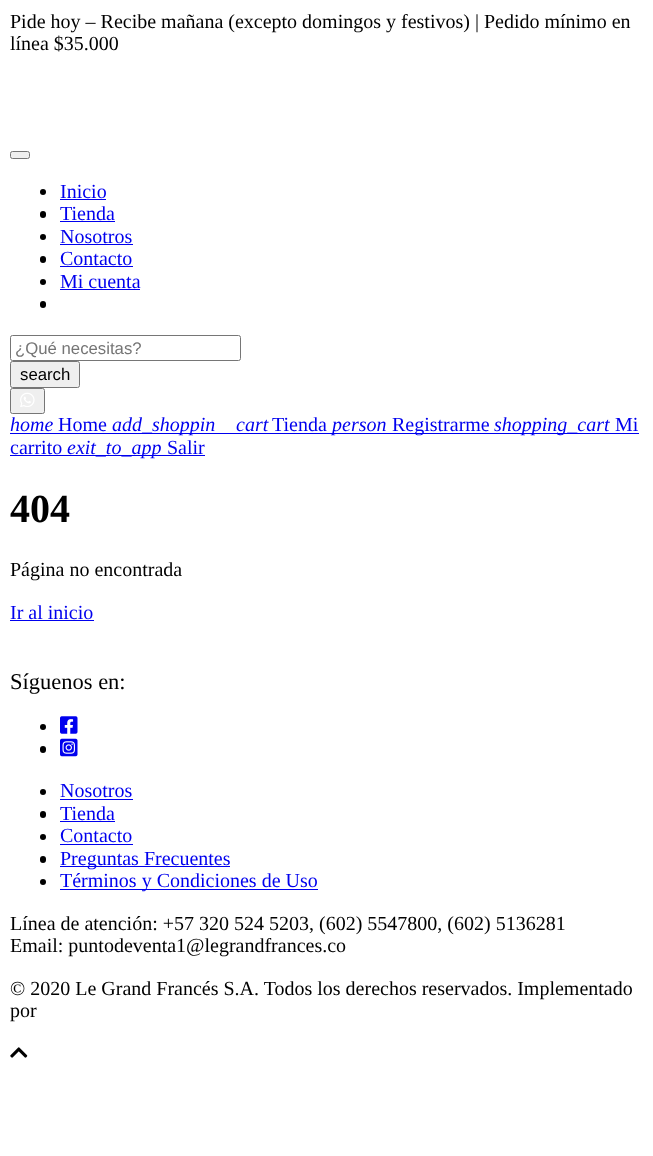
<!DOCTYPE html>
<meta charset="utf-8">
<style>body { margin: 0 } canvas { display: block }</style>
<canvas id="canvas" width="653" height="1156"></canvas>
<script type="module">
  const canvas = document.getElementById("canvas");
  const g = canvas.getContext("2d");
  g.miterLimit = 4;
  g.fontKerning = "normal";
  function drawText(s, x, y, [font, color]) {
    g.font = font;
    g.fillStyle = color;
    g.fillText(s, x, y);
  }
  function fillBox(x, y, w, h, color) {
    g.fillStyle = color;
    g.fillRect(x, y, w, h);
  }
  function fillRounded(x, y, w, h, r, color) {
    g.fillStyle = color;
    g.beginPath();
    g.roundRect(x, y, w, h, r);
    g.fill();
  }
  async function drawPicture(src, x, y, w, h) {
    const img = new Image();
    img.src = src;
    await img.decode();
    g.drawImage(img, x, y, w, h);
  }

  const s1 = ["20px Liberation Serif", "#000000"];
  const s2 = ["20px Liberation Serif", "#0000EE"];
  const s3 = ["16.75px Liberation Sans", "#757575"];
  const s4 = ["16.75px Liberation Sans", "#000000"];
  const s5 = ["italic 20px Liberation Serif", "#0000EE"];
  const s6 = ["bold 40px Liberation Serif", "#000000"];
  const s7 = ["22.5px Liberation Serif", "#000000"];

  fillBox(0, 0, 653, 1156, "#FFFFFF");
  drawText("Pide hoy – Recibe mañana (excepto domingos y festivos) | Pedido mínimo en", 10, 28, s1);
  drawText("línea $35.000", 10, 50, s1);
  g.fillStyle = "#EFEFEF";
  g.beginPath();
  g.roundRect(10.5, 151.5, 19, 7, 2);
  g.fill();
  g.strokeStyle = "#767676";
  g.stroke();
  g.fillStyle = "#000000";
  g.beginPath();
  g.arc(43, 192, 3, 0, Math.PI * 2);
  g.fill();
  drawText("Inicio", 60, 198, s2);
  fillBox(60, 199, 46, 1, "#0000EE");
  fillRounded(40, 211, 6, 7, 3, "#000000");
  drawText("Tienda", 60, 220, s2);
  fillBox(60, 221, 55, 1, "#0000EE");
  g.fillStyle = "#000000";
  g.beginPath();
  g.arc(43, 237, 3, 0, Math.PI * 2);
  g.fill();
  drawText("Nosotros", 60, 243, s2);
  fillBox(60, 244, 73, 1, "#0000EE");
  fillRounded(40, 256, 6, 7, 3, "#000000");
  drawText("Contacto", 60, 265, s2);
  fillBox(60, 266, 73, 1, "#0000EE");
  g.fillStyle = "#000000";
  g.beginPath();
  g.arc(43, 282, 3, 0, Math.PI * 2);
  g.fill();
  drawText("Mi cuenta", 60, 288, s2);
  fillBox(60, 289, 80, 1, "#0000EE");
  fillRounded(40, 301, 6, 7, 3, "#000000");
  g.beginPath();
  g.roundRect(10.5, 335.5, 230, 25, 2);
  g.stroke();
  drawText("¿Qué necesitas?", 15, 354, s3);
  g.fillStyle = "#EFEFEF";
  g.beginPath();
  g.roundRect(10.5, 361.5, 69, 26, 2);
  g.fill();
  g.stroke();
  drawText("search", 20, 380, s4);
  g.fillStyle = "#EFEFEF";
  g.beginPath();
  g.roundRect(10.5, 388.5, 34, 25, 2);
  g.fill();
  g.stroke();
  await drawPicture("pic1.png", 20, 392, 15, 15);
  drawText("home", 10, 431, s5);
  fillBox(10, 433, 600, 1, "#0000EE");
  drawText("Home", 58, 431, s2);
  drawText("add_shoppin", 112, 431, s5);
  drawText("cart", 236, 431, s5);
  drawText("Tienda", 272, 431, s2);
  drawText("person", 332, 431, s5);
  drawText("Registrarme", 392, 431, s2);
  drawText("shopping_cart", 494, 431, s5);
  fillBox(610, 433, 29, 1, "#0000EE");
  drawText("Mi", 615, 431, s2);
  drawText("carrito", 10, 454, s2);
  fillBox(10, 455, 195, 1, "#0000EE");
  drawText("exit_to_app", 67, 454, s5);
  drawText("Salir", 167, 454, s2);
  drawText("404", 10, 522, s6);
  drawText("Página no encontrada", 10, 576, s1);
  drawText("Ir al inicio", 10, 619, s2);
  fillBox(10, 620, 84, 1, "#0000EE");
  drawText("Síguenos en:", 10, 689, s7);
  g.beginPath();
  g.arc(43, 727, 3, 0, Math.PI * 2);
  g.fill();
  await drawPicture("pic2.png", 60, 716, 18, 18);
  fillRounded(40, 746, 6, 7, 3, "#000000");
  await drawPicture("pic3.png", 60, 738, 18, 19);
  g.beginPath();
  g.arc(43, 792, 3, 0, Math.PI * 2);
  g.fill();
  drawText("Nosotros", 60, 797, s2);
  fillBox(60, 799, 73, 1, "#0000EE");
  fillRounded(40, 811, 6, 7, 3, "#000000");
  drawText("Tienda", 60, 820, s2);
  fillBox(60, 821, 55, 1, "#0000EE");
  g.fillStyle = "#000000";
  g.beginPath();
  g.arc(43, 837, 3, 0, Math.PI * 2);
  g.fill();
  drawText("Contacto", 60, 842, s2);
  fillBox(60, 844, 73, 1, "#0000EE");
  fillRounded(40, 856, 6, 7, 3, "#000000");
  fillBox(60, 866, 170, 1, "#0000EE");
  drawText("Preguntas Frecuentes", 60, 865, s2);
  g.fillStyle = "#000000";
  g.beginPath();
  g.arc(43, 882, 3, 0, Math.PI * 2);
  g.fill();
  fillBox(60, 889, 258, 1, "#0000EE");
  drawText("Términos y Condiciones de Uso", 60, 887, s2);
  drawText("Línea de atención: +57 320 524 5203, (602) 5547800, (602) 5136281", 10, 930, s1);
  drawText("Email: puntodeventa1@legrandfrances.co", 10, 952, s1);
  drawText("© 2020 Le Grand Francés S.A. Todos los derechos reservados. Implementado", 10, 995, s1);
  drawText("por", 10, 1017, s1);
  await drawPicture("pic4.png", 10, 1047, 18, 11);
</script>
